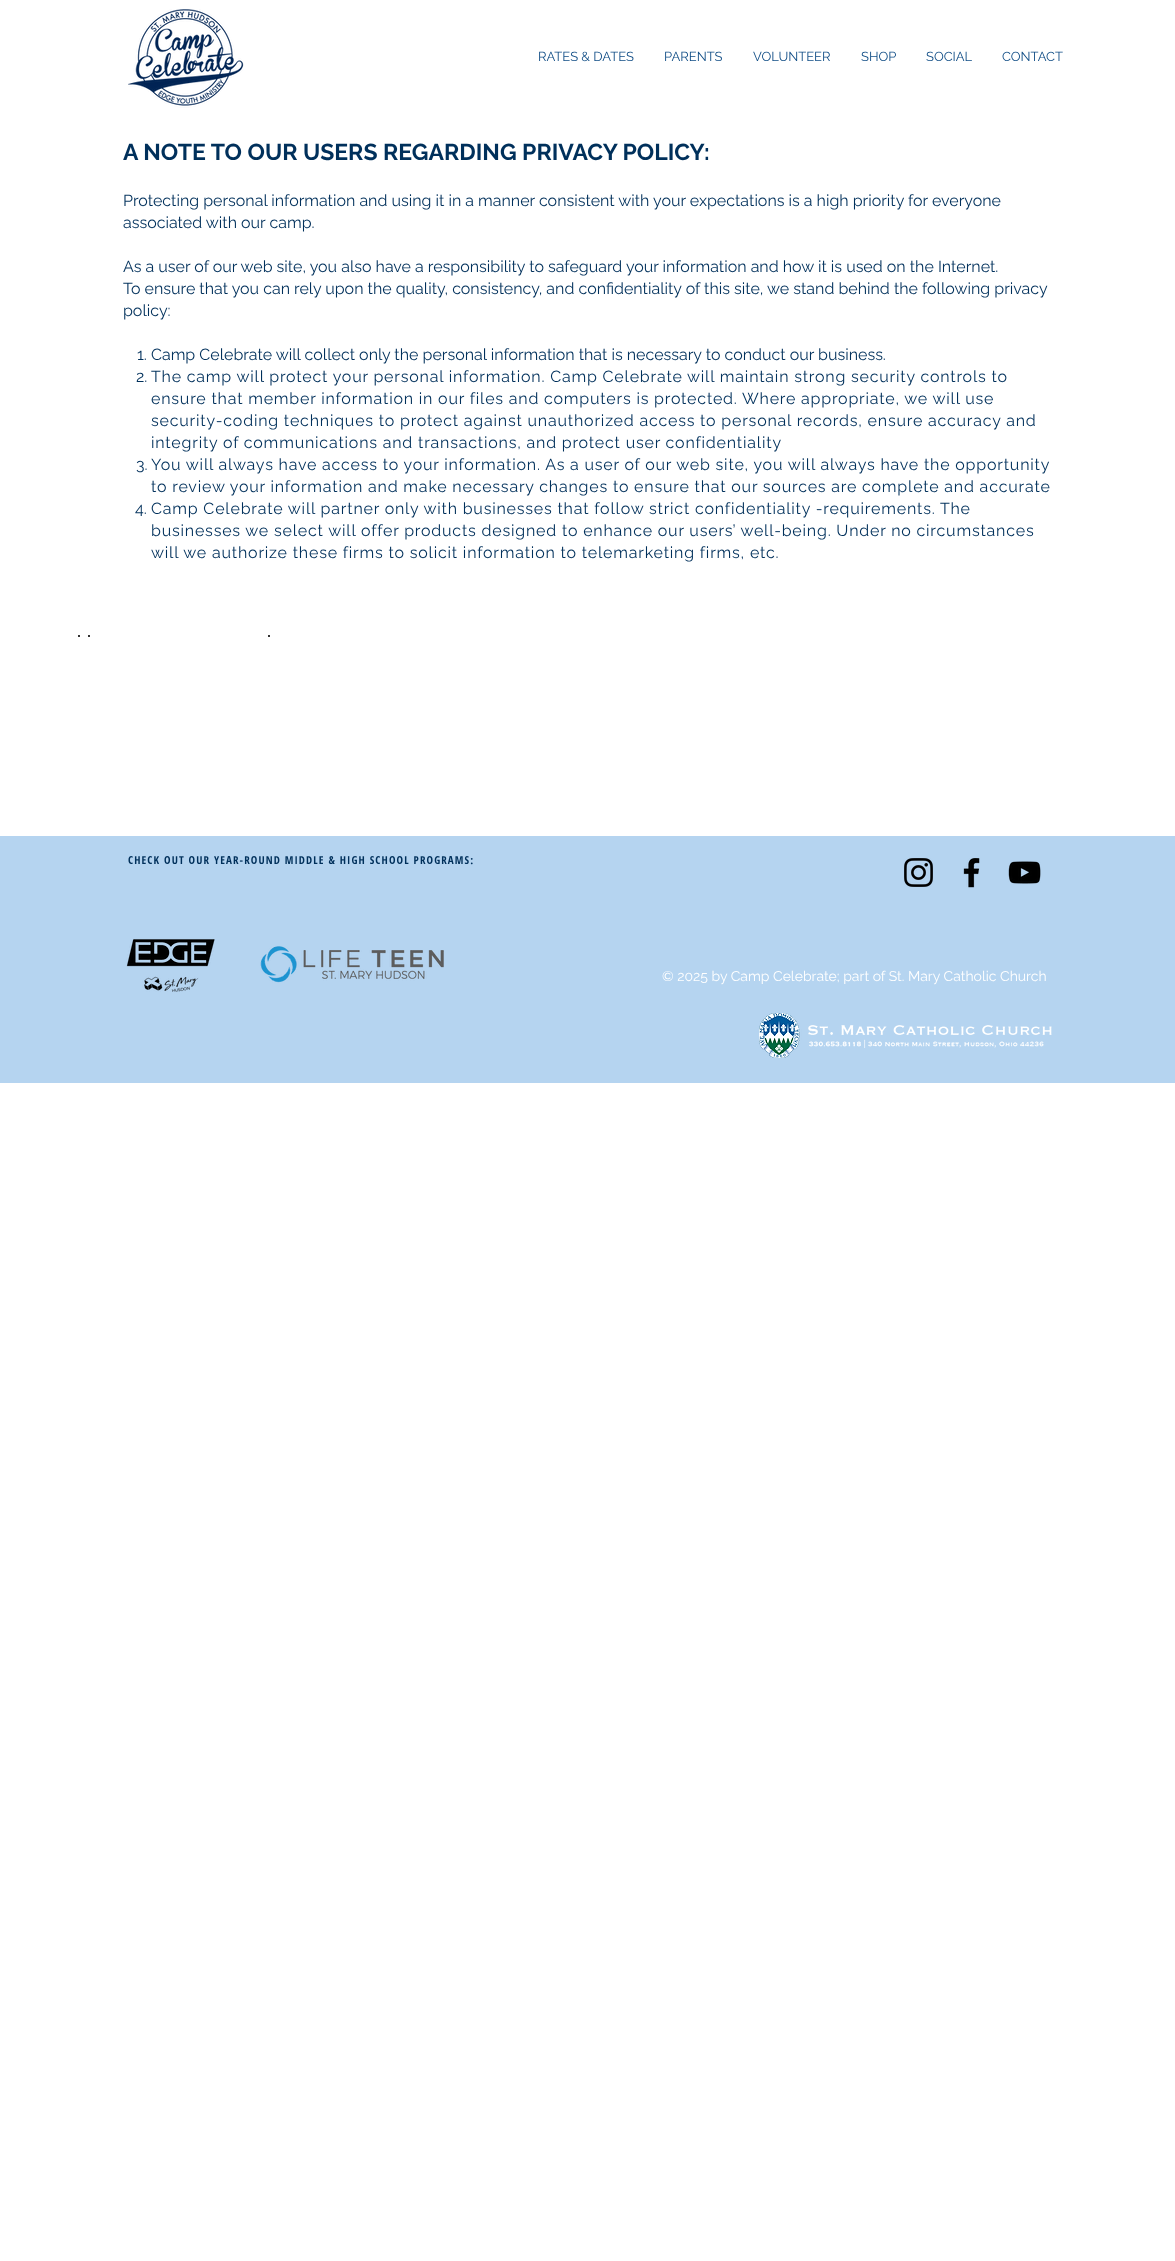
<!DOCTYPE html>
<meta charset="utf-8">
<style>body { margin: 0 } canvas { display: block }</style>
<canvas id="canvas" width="1175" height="2261"></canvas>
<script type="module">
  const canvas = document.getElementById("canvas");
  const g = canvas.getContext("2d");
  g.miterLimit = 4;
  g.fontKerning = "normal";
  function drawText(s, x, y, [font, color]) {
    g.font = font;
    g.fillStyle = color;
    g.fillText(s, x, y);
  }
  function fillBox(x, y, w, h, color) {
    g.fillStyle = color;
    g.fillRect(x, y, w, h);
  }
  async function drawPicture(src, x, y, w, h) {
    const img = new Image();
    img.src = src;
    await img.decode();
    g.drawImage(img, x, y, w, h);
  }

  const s1 = ["13px Raleway", "#0F4C85"];
  const s2 = ["bold 23px Raleway", "#00305B"];
  const s3 = ["16px Raleway", "#00305B"];
  const s4 = ["bold 11px Open Sans Condensed", "#00305B"];
  const s5 = ["14px Raleway", "#FFFFFF"];

  fillBox(0, 0, 1175, 2261, "#FFFFFF");
  await drawPicture("pic1.png", 128, 9, 116, 99);
  drawText("RATES & DATES", 538, 61, s1);
  drawText("PARENTS", 664, 61, s1);
  drawText("VOLUNTEER", 753, 61, s1);
  drawText("SHOP", 861, 61, s1);
  drawText("SOCIAL", 926, 61, s1);
  drawText("CONTACT", 1002, 61, s1);
  drawText("A NOTE TO OUR USERS REGARDING PRIVACY POLICY:", 123, 160, s2);
  drawText("Protecting personal information and using it in a manner consistent with your expectations is a high priority for everyone", 123, 206, s3);
  drawText("associated with our camp.", 123, 228, s3);
  drawText("As a user of our web site, you also have a responsibility to safeguard your information and how it is used on the Internet.", 123, 272, s3);
  drawText("To ensure that you can rely upon the quality, consistency, and confidentiality of this site, we stand behind the following privacy", 123, 294, s3);
  drawText("policy:", 123, 316, s3);
  drawText("1. Camp Celebrate will collect only the personal information that is necessary to conduct our business.", 137, 360, s3);
  drawText("2.", 136, 382, s3);
  g.letterSpacing = "0.8px";
  drawText("The camp will protect your personal information. Camp Celebrate will maintain strong security controls to", 151, 382, s3);
  drawText("ensure that member information in our files and computers is protected. Where appropriate, we will use", 151, 404, s3);
  drawText("security-coding techniques to protect against unauthorized access to personal records, ensure accuracy and", 151, 426, s3);
  drawText("integrity of communications and transactions, and protect user confidentiality", 151, 448, s3);
  g.letterSpacing = "0px";
  drawText("3.", 136, 470, s3);
  g.letterSpacing = "0.8px";
  drawText("You will always have access to your information. As a user of our web site, you will always have the opportunity", 151, 470, s3);
  drawText("to review your information and make necessary changes to ensure that our sources are complete and accurate", 151, 492, s3);
  g.letterSpacing = "0px";
  drawText("4.", 135, 514, s3);
  g.letterSpacing = "0.8px";
  drawText("Camp Celebrate will partner only with businesses that follow strict confidentiality -requirements. The", 151, 514, s3);
  drawText("businesses we select will offer products designed to enhance our users’ well-being. Under no circumstances", 151, 536, s3);
  drawText("will we authorize these firms to solicit information to telemarketing firms, etc.", 151, 558, s3);
  fillBox(0, 836, 1175, 247, "#B5D4F0");
  fillBox(78, 635, 2, 2, "#333333");
  fillBox(88, 635, 2, 2, "#333333");
  fillBox(268, 635, 2, 2, "#333333");
  g.letterSpacing = "1.1px";
  drawText("CHECK OUT OUR YEAR-ROUND MIDDLE & HIGH SCHOOL PROGRAMS:", 128, 864, s4);
  await drawPicture("pic2.png", 904, 858, 29, 29);
  await drawPicture("pic3.png", 963, 858, 17, 30);
  await drawPicture("pic4.png", 1008, 861, 33, 23);
  await drawPicture("pic5.png", 126, 939, 89, 53);
  await drawPicture("pic6.png", 260, 946, 184, 37);
  g.letterSpacing = "0px";
  drawText("© 2025 by Camp Celebrate; part of St. Mary Catholic Church", 662, 981, s5);
  await drawPicture("pic7.png", 759, 1013, 293, 45);
</script>
